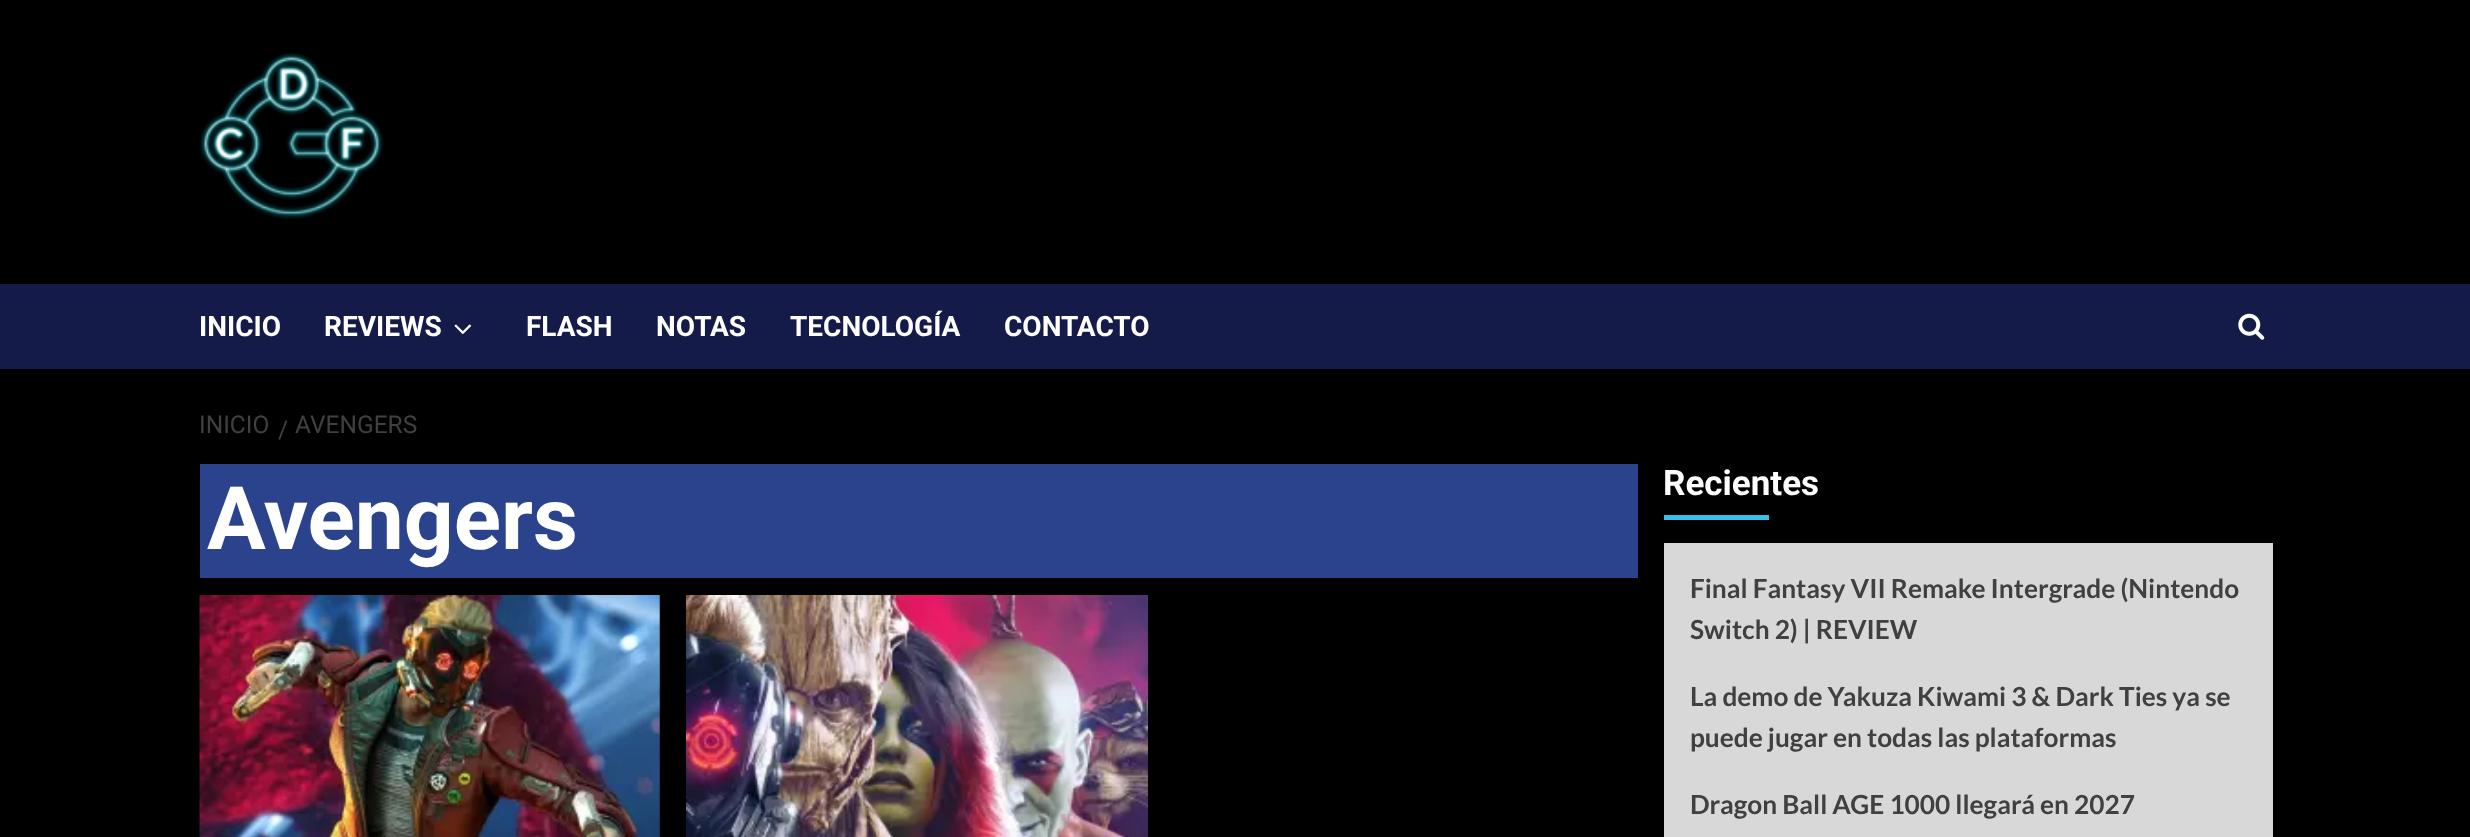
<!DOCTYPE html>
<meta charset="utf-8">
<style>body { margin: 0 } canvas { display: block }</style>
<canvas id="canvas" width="2470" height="837"></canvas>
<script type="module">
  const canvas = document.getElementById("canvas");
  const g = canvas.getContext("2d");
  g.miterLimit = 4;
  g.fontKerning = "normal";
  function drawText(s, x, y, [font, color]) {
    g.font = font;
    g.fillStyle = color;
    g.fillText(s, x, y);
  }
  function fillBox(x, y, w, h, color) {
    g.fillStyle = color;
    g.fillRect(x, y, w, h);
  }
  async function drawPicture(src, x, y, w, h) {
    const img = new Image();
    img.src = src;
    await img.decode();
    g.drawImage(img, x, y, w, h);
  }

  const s1 = ["bold 28px Roboto", "#FFFFFF"];
  const s2 = ["24.5px Roboto", "#404040"];
  const s3 = ["bold 87.5px Roboto", "#FFFFFF"];
  const s4 = ["bold 35px Roboto", "#FFFFFF"];
  const s5 = ["bold 26.25px Lato", "#404040"];

  fillBox(0, 0, 2470, 837, "#000000");
  await drawPicture("pic1.png", 199, 52, 184, 167);
  fillBox(0, 284, 2470, 85, "#151B48");
  drawText("INICIO", 199, 336, s1);
  drawText("REVIEWS", 324, 336, s1);
  await drawPicture("pic2.png", 454, 324, 18, 11);
  drawText("FLASH", 526, 336, s1);
  drawText("NOTAS", 656, 336, s1);
  drawText("TECNOLOGÍA", 790, 336, s1);
  drawText("CONTACTO", 1004, 336, s1);
  await drawPicture("pic3.png", 2238, 313, 27, 27);
  drawText("INICIO", 199, 433, s2);
  drawText("/", 278, 438, s2);
  drawText("AVENGERS", 295, 433, s2);
  fillBox(200, 464, 1438, 114, "#2B438D");
  drawText("Avengers", 207, 549, s3);
  await drawPicture("pic4.png", 199, 595, 461, 242);
  await drawPicture("pic5.png", 686, 595, 462, 242);
  drawText("Recientes", 1663, 495, s4);
  fillBox(1664, 515, 105, 5, "#37C0E8");
  fillBox(1664, 543, 609, 294, "#D8D8D8");
  drawText("Final Fantasy VII Remake Intergrade (Nintendo", 1690, 598, s5);
  drawText("Switch 2) | REVIEW", 1690, 639, s5);
  drawText("La demo de Yakuza Kiwami 3 & Dark Ties ya se", 1690, 706, s5);
  drawText("puede jugar en todas las plataformas", 1690, 747, s5);
  drawText("Dragon Ball AGE 1000 llegará en 2027", 1690, 814, s5);
</script>
